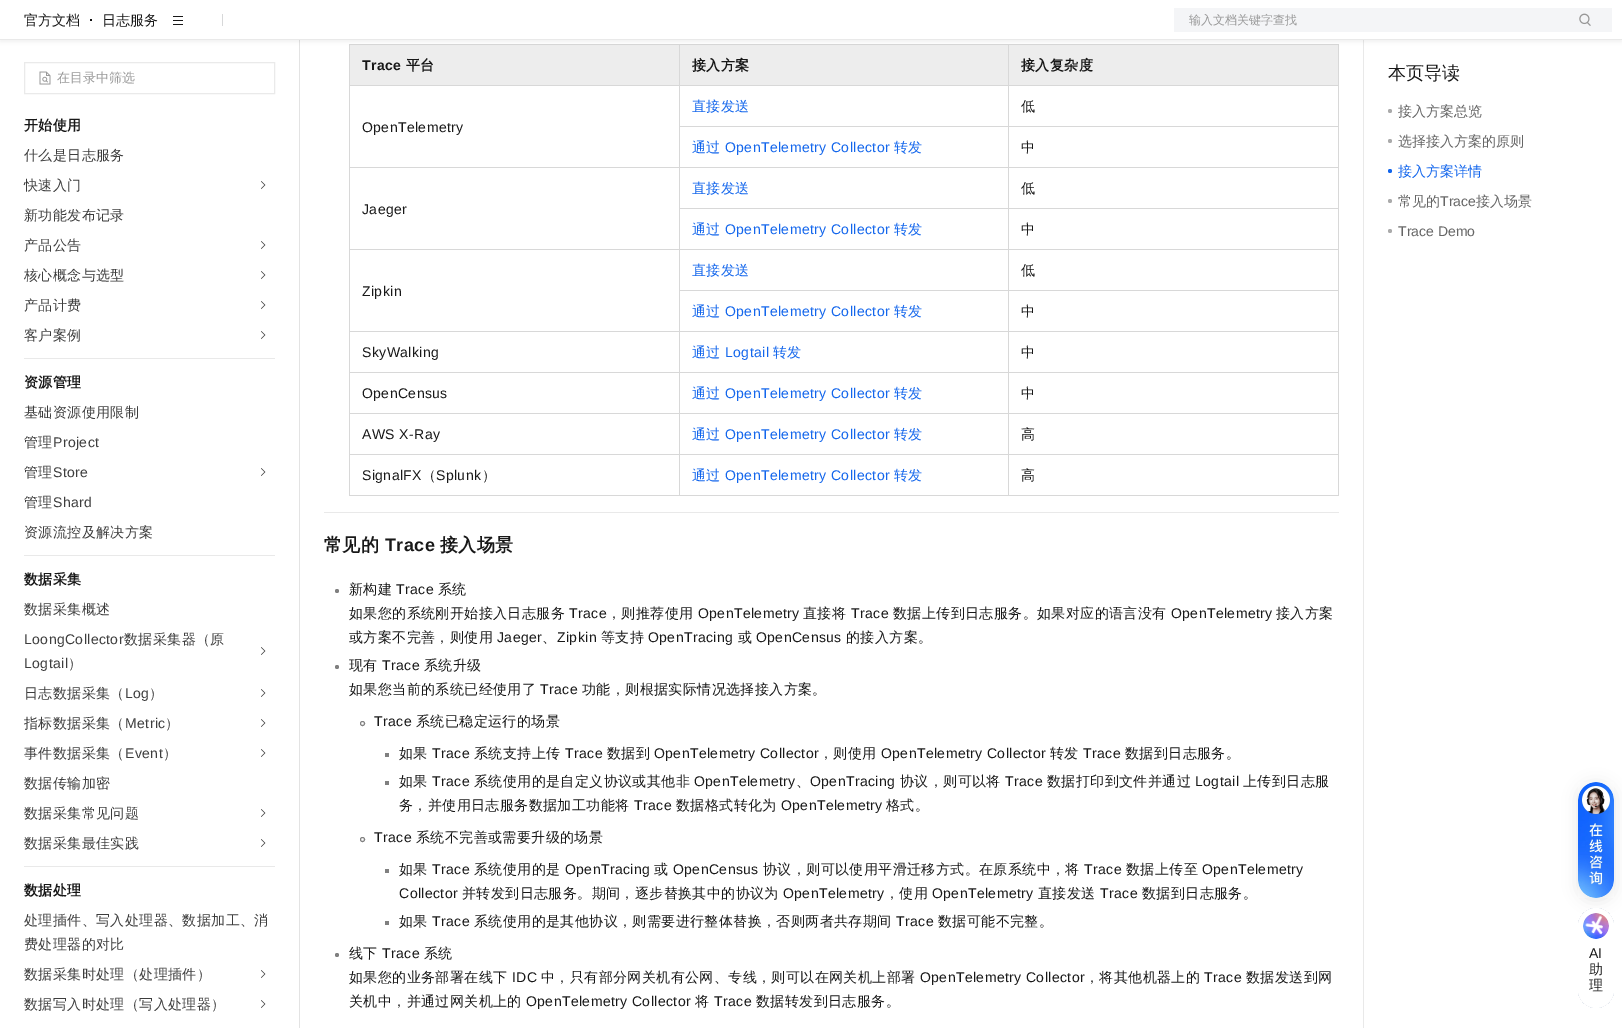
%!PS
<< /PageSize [1622 1028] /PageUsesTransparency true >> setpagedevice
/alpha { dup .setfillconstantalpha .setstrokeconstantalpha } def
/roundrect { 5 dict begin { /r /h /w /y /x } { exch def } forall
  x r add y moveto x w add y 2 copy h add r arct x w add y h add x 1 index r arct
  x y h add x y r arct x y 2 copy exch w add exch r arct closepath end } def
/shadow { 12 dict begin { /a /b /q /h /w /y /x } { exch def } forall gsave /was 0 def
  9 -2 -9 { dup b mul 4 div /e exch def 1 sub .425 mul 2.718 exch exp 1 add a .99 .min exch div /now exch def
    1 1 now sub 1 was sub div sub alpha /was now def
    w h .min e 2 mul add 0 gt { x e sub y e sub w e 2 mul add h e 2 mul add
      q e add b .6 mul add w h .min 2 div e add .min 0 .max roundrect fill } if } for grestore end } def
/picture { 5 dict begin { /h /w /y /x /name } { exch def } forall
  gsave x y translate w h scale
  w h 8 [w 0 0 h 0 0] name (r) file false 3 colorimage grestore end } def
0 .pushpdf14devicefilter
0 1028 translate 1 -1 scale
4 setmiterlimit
1 setgray
0 0 1622 1028 rectfill
0.89 setgray
299 40 1 988 rectfill
0.914 setgray
1363 40 1 988 rectfill
0.929 setgray
350 45 329 40 rectfill
0.847 setgray
1008 44 331 1 rectfill
1008 85 331 1 rectfill
1008 126 331 1 rectfill
1008 167 331 1 rectfill
1008 208 331 1 rectfill
1008 249 331 1 rectfill
1008 290 331 1 rectfill
1008 331 331 1 rectfill
1008 372 331 1 rectfill
1008 413 331 1 rectfill
1008 454 331 1 rectfill
1338 454 1 42 rectfill
1008 495 331 1 rectfill
1008 454 1 42 rectfill
679 454 330 1 rectfill
1008 413 1 42 rectfill
679 413 330 1 rectfill
1008 372 1 42 rectfill
679 372 330 1 rectfill
1008 331 1 42 rectfill
679 331 330 1 rectfill
1008 290 1 42 rectfill
679 290 330 1 rectfill
1008 249 1 42 rectfill
679 249 330 1 rectfill
1008 208 1 42 rectfill
679 208 330 1 rectfill
1008 167 1 42 rectfill
679 167 330 1 rectfill
1008 126 1 42 rectfill
679 126 330 1 rectfill
1008 85 1 42 rectfill
679 85 330 1 rectfill
1008 44 1 42 rectfill
679 44 330 1 rectfill
679 495 330 1 rectfill
679 454 1 42 rectfill
349 454 331 1 rectfill
679 413 1 42 rectfill
349 413 331 1 rectfill
679 372 1 42 rectfill
349 372 331 1 rectfill
679 331 1 42 rectfill
349 331 331 1 rectfill
679 290 1 42 rectfill
679 249 1 42 rectfill
349 249 331 1 rectfill
679 208 1 42 rectfill
679 167 1 42 rectfill
349 167 331 1 rectfill
679 126 1 42 rectfill
679 85 1 42 rectfill
349 85 331 1 rectfill
679 44 1 42 rectfill
349 44 331 1 rectfill
349 495 331 1 rectfill
349 454 1 42 rectfill
349 413 1 42 rectfill
349 372 1 42 rectfill
349 331 1 42 rectfill
349 249 1 83 rectfill
349 167 1 83 rectfill
349 85 1 83 rectfill
349 44 1 42 rectfill
0.929 setgray
680 45 328 40 rectfill
1009 45 329 40 rectfill
0.847 setgray
1338 413 1 42 rectfill
1338 372 1 42 rectfill
1338 331 1 42 rectfill
1338 290 1 42 rectfill
1338 249 1 42 rectfill
1338 208 1 42 rectfill
1338 167 1 42 rectfill
1338 126 1 42 rectfill
1338 85 1 42 rectfill
1338 44 1 42 rectfill
0 setgray
0 2 1622 40 0 2 0.05 shadow
1 setgray
0 0 1622 39 rectfill
0.914 setgray
0 39 1622 1 rectfill
0.843 0.847 0.851 setrgbcolor
222 14 1 12 rectfill
/WenQuanYiZenHei-Medium [14 0 0 -14 0 0] selectfont
0.094 setgray
24 25 moveto (官方文档) show
0 setgray
newpath 91 20 1 0 360 arc closepath fill
0.094 setgray
102 25 moveto (日志服务) show
173 16 10 1 rectfill
173 20 10 1 rectfill
173 24 10 1 rectfill
0.957 0.961 0.969 setrgbcolor
1174 8 438 24 rectfill
/WenQuanYiZenHei-Medium [12 0 0 -12 0 0] selectfont
0.6 setgray
1189 24 moveto (输入文档关键字查找) show
(img1.rgb) 1579 13 12 13 picture
0.918 setgray
24.5 62.5 250 31 rectstroke
(img2.rgb) 39 71 12 14 picture
/WenQuanYiZenHei-Medium [13 0 0 -13 0 0] selectfont
0.6 setgray
57 82 moveto (在目录中筛选) show
0.914 setgray
24 358 251 1 rectfill
/WenQuanYiZenHei-Bold [14 0 0 -14 0 0] selectfont
0.094 setgray
24 130 moveto 0.4 0 (开始使用) ashow
/WenQuanYiZenHei-Medium [14 0 0 -14 0 0] selectfont
0.239 setgray
24 160 moveto 0.4 0 (什么是日志服务) ashow
24 190 moveto 0.4 0 (快速入门) ashow
(img3.rgb) 261 181 5 8 picture
24 220 moveto 0.4 0 (新功能发布记录) ashow
24 250 moveto 0.4 0 (产品公告) ashow
(img3.rgb) 261 241 5 8 picture
24 280 moveto 0.4 0 (核心概念与选型) ashow
(img3.rgb) 261 271 5 8 picture
24 310 moveto 0.4 0 (产品计费) ashow
(img3.rgb) 261 301 5 8 picture
24 340 moveto 0.4 0 (客户案例) ashow
(img3.rgb) 261 331 5 8 picture
0.914 setgray
24 555 251 1 rectfill
/WenQuanYiZenHei-Bold [14 0 0 -14 0 0] selectfont
0.094 setgray
24 387 moveto 0.4 0 (资源管理) ashow
/WenQuanYiZenHei-Medium [14 0 0 -14 0 0] selectfont
0.239 setgray
24 417 moveto 0.4 0 (基础资源使用限制) ashow
24 447 moveto 0.4 0 (管理) ashow
/LiberationSans-Regular [14 0 0 -14 0 0] selectfont
53 447 moveto 0.4 0 (Project) ashow
/WenQuanYiZenHei-Medium [14 0 0 -14 0 0] selectfont
24 477 moveto 0.4 0 (管理) ashow
/LiberationSans-Regular [14 0 0 -14 0 0] selectfont
53 477 moveto 0.4 0 (Store) ashow
(img3.rgb) 261 468 5 8 picture
/WenQuanYiZenHei-Medium [14 0 0 -14 0 0] selectfont
24 507 moveto 0.4 0 (管理) ashow
/LiberationSans-Regular [14 0 0 -14 0 0] selectfont
53 507 moveto 0.4 0 (Shard) ashow
/WenQuanYiZenHei-Medium [14 0 0 -14 0 0] selectfont
24 537 moveto 0.4 0 (资源流控及解决方案) ashow
0.914 setgray
24 866 251 1 rectfill
/WenQuanYiZenHei-Bold [14 0 0 -14 0 0] selectfont
0.094 setgray
24 584 moveto 0.4 0 (数据采集) ashow
/WenQuanYiZenHei-Medium [14 0 0 -14 0 0] selectfont
0.239 setgray
24 614 moveto 0.4 0 (数据采集概述) ashow
/LiberationSans-Regular [14 0 0 -14 0 0] selectfont
24 644 moveto 0.4 0 (LoongCollector) ashow
/WenQuanYiZenHei-Medium [14 0 0 -14 0 0] selectfont
124 644 moveto 0.4 0 (数据采集器（原) ashow
/LiberationSans-Regular [14 0 0 -14 0 0] selectfont
24 668 moveto 0.4 0 (Logtail) ashow
/WenQuanYiZenHei-Medium [14 0 0 -14 0 0] selectfont
68 668 moveto 0.4 0 (）) ashow
(img3.rgb) 261 647 5 8 picture
24 698 moveto 0.4 0 (日志数据采集（) ashow
/LiberationSans-Regular [14 0 0 -14 0 0] selectfont
125 698 moveto 0.4 0 (Log) ashow
/WenQuanYiZenHei-Medium [14 0 0 -14 0 0] selectfont
149 698 moveto 0.4 0 (）) ashow
(img3.rgb) 261 689 5 8 picture
24 728 moveto 0.4 0 (指标数据采集（) ashow
/LiberationSans-Regular [14 0 0 -14 0 0] selectfont
125 728 moveto 0.4 0 (Metric) ashow
/WenQuanYiZenHei-Medium [14 0 0 -14 0 0] selectfont
165 728 moveto 0.4 0 (）) ashow
(img3.rgb) 261 719 5 8 picture
24 758 moveto 0.4 0 (事件数据采集（) ashow
/LiberationSans-Regular [14 0 0 -14 0 0] selectfont
125 758 moveto 0.4 0 (Event) ashow
/WenQuanYiZenHei-Medium [14 0 0 -14 0 0] selectfont
163 758 moveto 0.4 0 (）) ashow
(img3.rgb) 261 749 5 8 picture
24 788 moveto 0.4 0 (数据传输加密) ashow
24 818 moveto 0.4 0 (数据采集常见问题) ashow
(img3.rgb) 261 809 5 8 picture
24 848 moveto 0.4 0 (数据采集最佳实践) ashow
(img3.rgb) 261 839 5 8 picture
/WenQuanYiZenHei-Bold [14 0 0 -14 0 0] selectfont
0.094 setgray
24 895 moveto 0.4 0 (数据处理) ashow
/WenQuanYiZenHei-Medium [14 0 0 -14 0 0] selectfont
0.239 setgray
24 925 moveto 0.4 0 (处理插件、写入处理器、数据加工、消) ashow
24 949 moveto 0.4 0 (费处理器的对比) ashow
24 979 moveto 0.4 0 (数据采集时处理（处理插件）) ashow
(img3.rgb) 261 970 5 8 picture
24 1009 moveto 0.4 0 (数据写入时处理（写入处理器）) ashow
(img3.rgb) 261 1000 5 8 picture
/LiberationSans-Bold [14 0 0 -14 0 0] selectfont
0.094 setgray
362 70 moveto 0.4 0 (Trace) ashow
/WenQuanYiZenHei-Bold [14 0 0 -14 0 0] selectfont
406 70 moveto 0.4 0 (平台) ashow
692 70 moveto 0.4 0 (接入方案) ashow
1021 70 moveto 0.4 0 (接入复杂度) ashow
/WenQuanYiZenHei-Medium [14 0 0 -14 0 0] selectfont
0.075 0.4 0.925 setrgbcolor
692 111 moveto 0.4 0 (直接发送) ashow
0.094 setgray
1021 111 moveto 0.4 0 (低) ashow
/LiberationSans-Regular [14 0 0 -14 0 0] selectfont
362 132 moveto 0.4 0 (OpenTelemetry) ashow
/WenQuanYiZenHei-Medium [14 0 0 -14 0 0] selectfont
0.075 0.4 0.925 setrgbcolor
692 152 moveto 0.4 0 (通过) ashow
/LiberationSans-Regular [14 0 0 -14 0 0] selectfont
725 152 moveto 0.4 0 (OpenTelemetry Collector) ashow
/WenQuanYiZenHei-Medium [14 0 0 -14 0 0] selectfont
894 152 moveto 0.4 0 (转发) ashow
0.094 setgray
1021 152 moveto 0.4 0 (中) ashow
0.075 0.4 0.925 setrgbcolor
692 193 moveto 0.4 0 (直接发送) ashow
0.094 setgray
1021 193 moveto 0.4 0 (低) ashow
/LiberationSans-Regular [14 0 0 -14 0 0] selectfont
362 214 moveto 0.4 0 (Jaeger) ashow
/WenQuanYiZenHei-Medium [14 0 0 -14 0 0] selectfont
0.075 0.4 0.925 setrgbcolor
692 234 moveto 0.4 0 (通过) ashow
/LiberationSans-Regular [14 0 0 -14 0 0] selectfont
725 234 moveto 0.4 0 (OpenTelemetry Collector) ashow
/WenQuanYiZenHei-Medium [14 0 0 -14 0 0] selectfont
894 234 moveto 0.4 0 (转发) ashow
0.094 setgray
1021 234 moveto 0.4 0 (中) ashow
0.075 0.4 0.925 setrgbcolor
692 275 moveto 0.4 0 (直接发送) ashow
0.094 setgray
1021 275 moveto 0.4 0 (低) ashow
/LiberationSans-Regular [14 0 0 -14 0 0] selectfont
362 296 moveto 0.4 0 (Zipkin) ashow
/WenQuanYiZenHei-Medium [14 0 0 -14 0 0] selectfont
0.075 0.4 0.925 setrgbcolor
692 316 moveto 0.4 0 (通过) ashow
/LiberationSans-Regular [14 0 0 -14 0 0] selectfont
725 316 moveto 0.4 0 (OpenTelemetry Collector) ashow
/WenQuanYiZenHei-Medium [14 0 0 -14 0 0] selectfont
894 316 moveto 0.4 0 (转发) ashow
0.094 setgray
1021 316 moveto 0.4 0 (中) ashow
/LiberationSans-Regular [14 0 0 -14 0 0] selectfont
362 357 moveto 0.4 0 (SkyWalking) ashow
/WenQuanYiZenHei-Medium [14 0 0 -14 0 0] selectfont
0.075 0.4 0.925 setrgbcolor
692 357 moveto 0.4 0 (通过) ashow
/LiberationSans-Regular [14 0 0 -14 0 0] selectfont
725 357 moveto 0.4 0 (Logtail) ashow
/WenQuanYiZenHei-Medium [14 0 0 -14 0 0] selectfont
773 357 moveto 0.4 0 (转发) ashow
0.094 setgray
1021 357 moveto 0.4 0 (中) ashow
/LiberationSans-Regular [14 0 0 -14 0 0] selectfont
362 398 moveto 0.4 0 (OpenCensus) ashow
/WenQuanYiZenHei-Medium [14 0 0 -14 0 0] selectfont
0.075 0.4 0.925 setrgbcolor
692 398 moveto 0.4 0 (通过) ashow
/LiberationSans-Regular [14 0 0 -14 0 0] selectfont
725 398 moveto 0.4 0 (OpenTelemetry Collector) ashow
/WenQuanYiZenHei-Medium [14 0 0 -14 0 0] selectfont
894 398 moveto 0.4 0 (转发) ashow
0.094 setgray
1021 398 moveto 0.4 0 (中) ashow
/LiberationSans-Regular [14 0 0 -14 0 0] selectfont
362 439 moveto 0.4 0 (AWS X-Ray) ashow
/WenQuanYiZenHei-Medium [14 0 0 -14 0 0] selectfont
0.075 0.4 0.925 setrgbcolor
692 439 moveto 0.4 0 (通过) ashow
/LiberationSans-Regular [14 0 0 -14 0 0] selectfont
725 439 moveto 0.4 0 (OpenTelemetry Collector) ashow
/WenQuanYiZenHei-Medium [14 0 0 -14 0 0] selectfont
894 439 moveto 0.4 0 (转发) ashow
0.094 setgray
1021 439 moveto 0.4 0 (高) ashow
/LiberationSans-Regular [14 0 0 -14 0 0] selectfont
362 480 moveto 0.4 0 (SignalFX) ashow
/WenQuanYiZenHei-Medium [14 0 0 -14 0 0] selectfont
422 480 moveto 0.4 0 (（) ashow
/LiberationSans-Regular [14 0 0 -14 0 0] selectfont
436 480 moveto 0.4 0 (Splunk) ashow
/WenQuanYiZenHei-Medium [14 0 0 -14 0 0] selectfont
482 480 moveto 0.4 0 (）) ashow
0.075 0.4 0.925 setrgbcolor
692 480 moveto 0.4 0 (通过) ashow
/LiberationSans-Regular [14 0 0 -14 0 0] selectfont
725 480 moveto 0.4 0 (OpenTelemetry Collector) ashow
/WenQuanYiZenHei-Medium [14 0 0 -14 0 0] selectfont
894 480 moveto 0.4 0 (转发) ashow
0.094 setgray
1021 480 moveto 0.4 0 (高) ashow
0.914 setgray
324 512 1015 1 rectfill
/WenQuanYiZenHei-Bold [18 0 0 -18 0 0] selectfont
0.094 setgray
324 551 moveto 0.4 0 (常见的) ashow
/LiberationSans-Bold [18 0 0 -18 0 0] selectfont
385 551 moveto 0.4 0 (Trace) ashow
/WenQuanYiZenHei-Bold [18 0 0 -18 0 0] selectfont
440 551 moveto 0.4 0 (接入场景) ashow
0.502 setgray
newpath 337 591 2 0 360 arc closepath fill
/WenQuanYiZenHei-Medium [14 0 0 -14 0 0] selectfont
0.094 setgray
349 594 moveto 0.4 0 (新构建) ashow
/LiberationSans-Regular [14 0 0 -14 0 0] selectfont
396 594 moveto 0.4 0 (Trace) ashow
/WenQuanYiZenHei-Medium [14 0 0 -14 0 0] selectfont
438 594 moveto 0.4 0 (系统) ashow
349 618 moveto 0.4 0 (如果您的系统刚开始接入日志服务) ashow
/LiberationSans-Regular [14 0 0 -14 0 0] selectfont
569 618 moveto 0.4 0 (Trace) ashow
/WenQuanYiZenHei-Medium [14 0 0 -14 0 0] selectfont
607 618 moveto 0.4 0 (，则推荐使用) ashow
/LiberationSans-Regular [14 0 0 -14 0 0] selectfont
698 618 moveto 0.4 0 (OpenTelemetry) ashow
/WenQuanYiZenHei-Medium [14 0 0 -14 0 0] selectfont
803 618 moveto 0.4 0 (直接将) ashow
/LiberationSans-Regular [14 0 0 -14 0 0] selectfont
851 618 moveto 0.4 0 (Trace) ashow
/WenQuanYiZenHei-Medium [14 0 0 -14 0 0] selectfont
893 618 moveto 0.4 0 (数据上传到日志服务。如果对应的语言没有) ashow
/LiberationSans-Regular [14 0 0 -14 0 0] selectfont
1171 618 moveto 0.4 0 (OpenTelemetry) ashow
/WenQuanYiZenHei-Medium [14 0 0 -14 0 0] selectfont
1276 618 moveto 0.4 0 (接入方案) ashow
349 642 moveto 0.4 0 (或方案不完善，则使用) ashow
/LiberationSans-Regular [14 0 0 -14 0 0] selectfont
497 642 moveto 0.4 0 (Jaeger) ashow
/WenQuanYiZenHei-Medium [14 0 0 -14 0 0] selectfont
542 642 moveto 0.4 0 (、) ashow
/LiberationSans-Regular [14 0 0 -14 0 0] selectfont
557 642 moveto 0.4 0 (Zipkin) ashow
/WenQuanYiZenHei-Medium [14 0 0 -14 0 0] selectfont
601 642 moveto 0.4 0 (等支持) ashow
/LiberationSans-Regular [14 0 0 -14 0 0] selectfont
648 642 moveto 0.4 0 (OpenTracing) ashow
/WenQuanYiZenHei-Medium [14 0 0 -14 0 0] selectfont
738 642 moveto 0.4 0 (或) ashow
/LiberationSans-Regular [14 0 0 -14 0 0] selectfont
756 642 moveto 0.4 0 (OpenCensus) ashow
/WenQuanYiZenHei-Medium [14 0 0 -14 0 0] selectfont
846 642 moveto 0.4 0 (的接入方案。) ashow
0.502 setgray
newpath 337 667 2 0 360 arc closepath fill
0.094 setgray
349 670 moveto 0.4 0 (现有) ashow
/LiberationSans-Regular [14 0 0 -14 0 0] selectfont
382 670 moveto 0.4 0 (Trace) ashow
/WenQuanYiZenHei-Medium [14 0 0 -14 0 0] selectfont
424 670 moveto 0.4 0 (系统升级) ashow
349 694 moveto 0.4 0 (如果您当前的系统已经使用了) ashow
/LiberationSans-Regular [14 0 0 -14 0 0] selectfont
540 694 moveto 0.4 0 (Trace) ashow
/WenQuanYiZenHei-Medium [14 0 0 -14 0 0] selectfont
582 694 moveto 0.4 0 (功能，则根据实际情况选择接入方案。) ashow
0.502 setgray
newpath 362.5 723.5 2 0 360 arc closepath stroke
/LiberationSans-Regular [14 0 0 -14 0 0] selectfont
0.094 setgray
374 726 moveto 0.4 0 (Trace) ashow
/WenQuanYiZenHei-Medium [14 0 0 -14 0 0] selectfont
416 726 moveto 0.4 0 (系统已稳定运行的场景) ashow
0.502 setgray
385 753 4 4 rectfill
0.094 setgray
399 758 moveto 0.4 0 (如果) ashow
/LiberationSans-Regular [14 0 0 -14 0 0] selectfont
432 758 moveto 0.4 0 (Trace) ashow
/WenQuanYiZenHei-Medium [14 0 0 -14 0 0] selectfont
474 758 moveto 0.4 0 (系统支持上传) ashow
/LiberationSans-Regular [14 0 0 -14 0 0] selectfont
565 758 moveto 0.4 0 (Trace) ashow
/WenQuanYiZenHei-Medium [14 0 0 -14 0 0] selectfont
607 758 moveto 0.4 0 (数据到) ashow
/LiberationSans-Regular [14 0 0 -14 0 0] selectfont
654 758 moveto 0.4 0 (OpenTelemetry Collector) ashow
/WenQuanYiZenHei-Medium [14 0 0 -14 0 0] selectfont
819 758 moveto 0.4 0 (，则使用) ashow
/LiberationSans-Regular [14 0 0 -14 0 0] selectfont
881 758 moveto 0.4 0 (OpenTelemetry Collector) ashow
/WenQuanYiZenHei-Medium [14 0 0 -14 0 0] selectfont
1050 758 moveto 0.4 0 (转发) ashow
/LiberationSans-Regular [14 0 0 -14 0 0] selectfont
1083 758 moveto 0.4 0 (Trace) ashow
/WenQuanYiZenHei-Medium [14 0 0 -14 0 0] selectfont
1125 758 moveto 0.4 0 (数据到日志服务。) ashow
0.502 setgray
385 781 4 4 rectfill
0.094 setgray
399 786 moveto 0.4 0 (如果) ashow
/LiberationSans-Regular [14 0 0 -14 0 0] selectfont
432 786 moveto 0.4 0 (Trace) ashow
/WenQuanYiZenHei-Medium [14 0 0 -14 0 0] selectfont
474 786 moveto 0.4 0 (系统使用的是自定义协议或其他非) ashow
/LiberationSans-Regular [14 0 0 -14 0 0] selectfont
694 786 moveto 0.4 0 (OpenTelemetry) ashow
/WenQuanYiZenHei-Medium [14 0 0 -14 0 0] selectfont
796 786 moveto 0.4 0 (、) ashow
/LiberationSans-Regular [14 0 0 -14 0 0] selectfont
810 786 moveto 0.4 0 (OpenTracing) ashow
/WenQuanYiZenHei-Medium [14 0 0 -14 0 0] selectfont
900 786 moveto 0.4 0 (协议，则可以将) ashow
/LiberationSans-Regular [14 0 0 -14 0 0] selectfont
1005 786 moveto 0.4 0 (Trace) ashow
/WenQuanYiZenHei-Medium [14 0 0 -14 0 0] selectfont
1047 786 moveto 0.4 0 (数据打印到文件并通过) ashow
/LiberationSans-Regular [14 0 0 -14 0 0] selectfont
1195 786 moveto 0.4 0 (Logtail) ashow
/WenQuanYiZenHei-Medium [14 0 0 -14 0 0] selectfont
1243 786 moveto 0.4 0 (上传到日志服) ashow
399 810 moveto 0.4 0 (务，并使用日志服务数据加工功能将) ashow
/LiberationSans-Regular [14 0 0 -14 0 0] selectfont
634 810 moveto 0.4 0 (Trace) ashow
/WenQuanYiZenHei-Medium [14 0 0 -14 0 0] selectfont
676 810 moveto 0.4 0 (数据格式转化为) ashow
/LiberationSans-Regular [14 0 0 -14 0 0] selectfont
781 810 moveto 0.4 0 (OpenTelemetry) ashow
/WenQuanYiZenHei-Medium [14 0 0 -14 0 0] selectfont
886 810 moveto 0.4 0 (格式。) ashow
0.502 setgray
newpath 362.5 839.5 2 0 360 arc closepath stroke
/LiberationSans-Regular [14 0 0 -14 0 0] selectfont
0.094 setgray
374 842 moveto 0.4 0 (Trace) ashow
/WenQuanYiZenHei-Medium [14 0 0 -14 0 0] selectfont
416 842 moveto 0.4 0 (系统不完善或需要升级的场景) ashow
0.502 setgray
385 869 4 4 rectfill
0.094 setgray
399 874 moveto 0.4 0 (如果) ashow
/LiberationSans-Regular [14 0 0 -14 0 0] selectfont
432 874 moveto 0.4 0 (Trace) ashow
/WenQuanYiZenHei-Medium [14 0 0 -14 0 0] selectfont
474 874 moveto 0.4 0 (系统使用的是) ashow
/LiberationSans-Regular [14 0 0 -14 0 0] selectfont
565 874 moveto 0.4 0 (OpenTracing) ashow
/WenQuanYiZenHei-Medium [14 0 0 -14 0 0] selectfont
654 874 moveto 0.4 0 (或) ashow
/LiberationSans-Regular [14 0 0 -14 0 0] selectfont
673 874 moveto 0.4 0 (OpenCensus) ashow
/WenQuanYiZenHei-Medium [14 0 0 -14 0 0] selectfont
763 874 moveto 0.4 0 (协议，则可以使用平滑迁移方式。在原系统中，将) ashow
/LiberationSans-Regular [14 0 0 -14 0 0] selectfont
1084 874 moveto 0.4 0 (Trace) ashow
/WenQuanYiZenHei-Medium [14 0 0 -14 0 0] selectfont
1126 874 moveto 0.4 0 (数据上传至) ashow
/LiberationSans-Regular [14 0 0 -14 0 0] selectfont
1202 874 moveto 0.4 0 (OpenTelemetry) ashow
399 898 moveto 0.4 0 (Collector) ashow
/WenQuanYiZenHei-Medium [14 0 0 -14 0 0] selectfont
462 898 moveto 0.4 0 (并转发到日志服务。期间，逐步替换其中的协议为) ashow
/LiberationSans-Regular [14 0 0 -14 0 0] selectfont
783 898 moveto 0.4 0 (OpenTelemetry) ashow
/WenQuanYiZenHei-Medium [14 0 0 -14 0 0] selectfont
885 898 moveto 0.4 0 (，使用) ashow
/LiberationSans-Regular [14 0 0 -14 0 0] selectfont
932 898 moveto 0.4 0 (OpenTelemetry) ashow
/WenQuanYiZenHei-Medium [14 0 0 -14 0 0] selectfont
1038 898 moveto 0.4 0 (直接发送) ashow
/LiberationSans-Regular [14 0 0 -14 0 0] selectfont
1100 898 moveto 0.4 0 (Trace) ashow
/WenQuanYiZenHei-Medium [14 0 0 -14 0 0] selectfont
1142 898 moveto 0.4 0 (数据到日志服务。) ashow
0.502 setgray
385 921 4 4 rectfill
0.094 setgray
399 926 moveto 0.4 0 (如果) ashow
/LiberationSans-Regular [14 0 0 -14 0 0] selectfont
432 926 moveto 0.4 0 (Trace) ashow
/WenQuanYiZenHei-Medium [14 0 0 -14 0 0] selectfont
474 926 moveto 0.4 0 (系统使用的是其他协议，则需要进行整体替换，否则两者共存期间) ashow
/LiberationSans-Regular [14 0 0 -14 0 0] selectfont
896 926 moveto 0.4 0 (Trace) ashow
/WenQuanYiZenHei-Medium [14 0 0 -14 0 0] selectfont
938 926 moveto 0.4 0 (数据可能不完整。) ashow
0.502 setgray
newpath 337 955 2 0 360 arc closepath fill
0.094 setgray
349 958 moveto 0.4 0 (线下) ashow
/LiberationSans-Regular [14 0 0 -14 0 0] selectfont
382 958 moveto 0.4 0 (Trace) ashow
/WenQuanYiZenHei-Medium [14 0 0 -14 0 0] selectfont
424 958 moveto 0.4 0 (系统) ashow
349 982 moveto 0.4 0 (如果您的业务部署在线下) ashow
/LiberationSans-Regular [14 0 0 -14 0 0] selectfont
512 982 moveto 0.4 0 (IDC) ashow
/WenQuanYiZenHei-Medium [14 0 0 -14 0 0] selectfont
541 982 moveto 0.4 0 (中，只有部分网关机有公网、专线，则可以在网关机上部署) ashow
/LiberationSans-Regular [14 0 0 -14 0 0] selectfont
920 982 moveto 0.4 0 (OpenTelemetry Collector) ashow
/WenQuanYiZenHei-Medium [14 0 0 -14 0 0] selectfont
1085 982 moveto 0.4 0 (，将其他机器上的) ashow
/LiberationSans-Regular [14 0 0 -14 0 0] selectfont
1204 982 moveto 0.4 0 (Trace) ashow
/WenQuanYiZenHei-Medium [14 0 0 -14 0 0] selectfont
1246 982 moveto 0.4 0 (数据发送到网) ashow
349 1006 moveto 0.4 0 (关机中，并通过网关机上的) ashow
/LiberationSans-Regular [14 0 0 -14 0 0] selectfont
526 1006 moveto 0.4 0 (OpenTelemetry Collector) ashow
/WenQuanYiZenHei-Medium [14 0 0 -14 0 0] selectfont
695 1006 moveto 0.4 0 (将) ashow
/LiberationSans-Regular [14 0 0 -14 0 0] selectfont
714 1006 moveto 0.4 0 (Trace) ashow
/WenQuanYiZenHei-Medium [14 0 0 -14 0 0] selectfont
756 1006 moveto 0.4 0 (数据转发到日志服务。) ashow
/WenQuanYiZenHei-Medium [18 0 0 -18 0 0] selectfont
1388 79 moveto (本页导读) show
0.671 setgray
newpath 1390 111 2 0 360 arc closepath fill
/WenQuanYiZenHei-Medium [14 0 0 -14 0 0] selectfont
0.4 setgray
1398 116 moveto (接入方案总览) show
0.671 setgray
newpath 1390 141 2 0 360 arc closepath fill
0.4 setgray
1398 146 moveto (选择接入方案的原则) show
0.075 0.4 0.925 setrgbcolor
newpath 1390 171 2 0 360 arc closepath fill
1398 176 moveto (接入方案详情) show
0.671 setgray
newpath 1390 201 2 0 360 arc closepath fill
0.4 setgray
1398 206 moveto (常见的) show
/LiberationSans-Regular [14 0 0 -14 0 0] selectfont
1440 206 moveto (Trace) show
/WenQuanYiZenHei-Medium [14 0 0 -14 0 0] selectfont
1476 206 moveto (接入场景) show
0.671 setgray
newpath 1390 231 2 0 360 arc closepath fill
/LiberationSans-Regular [14 0 0 -14 0 0] selectfont
0.4 setgray
1398 236 moveto (Trace Demo) show
0 setgray
1578 784 36 116 18 7.5 0.1 shadow
(img4.rgb) 1578 782 36 116 picture
gsave
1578 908 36 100 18 roundrect clip newpath
0.784 0.91 1 setrgbcolor
1528 858 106 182 0 4 1 shadow
1 0.847 0.8 setrgbcolor
1528 858 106 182 0 4 0.37 shadow
grestore
1 setgray
1578 908 36 100 18 roundrect fill
(img5.rgb) 1583 913 26 26 picture
(img6.rgb) 1585 915 18 20 picture
0.094 setgray
1589 958 moveto (AI) show
/WenQuanYiZenHei-Medium [14 0 0 -14 0 0] selectfont
1589 974 moveto (助) show
1589 990 moveto (理) show
.poppdf14devicefilter showpage
